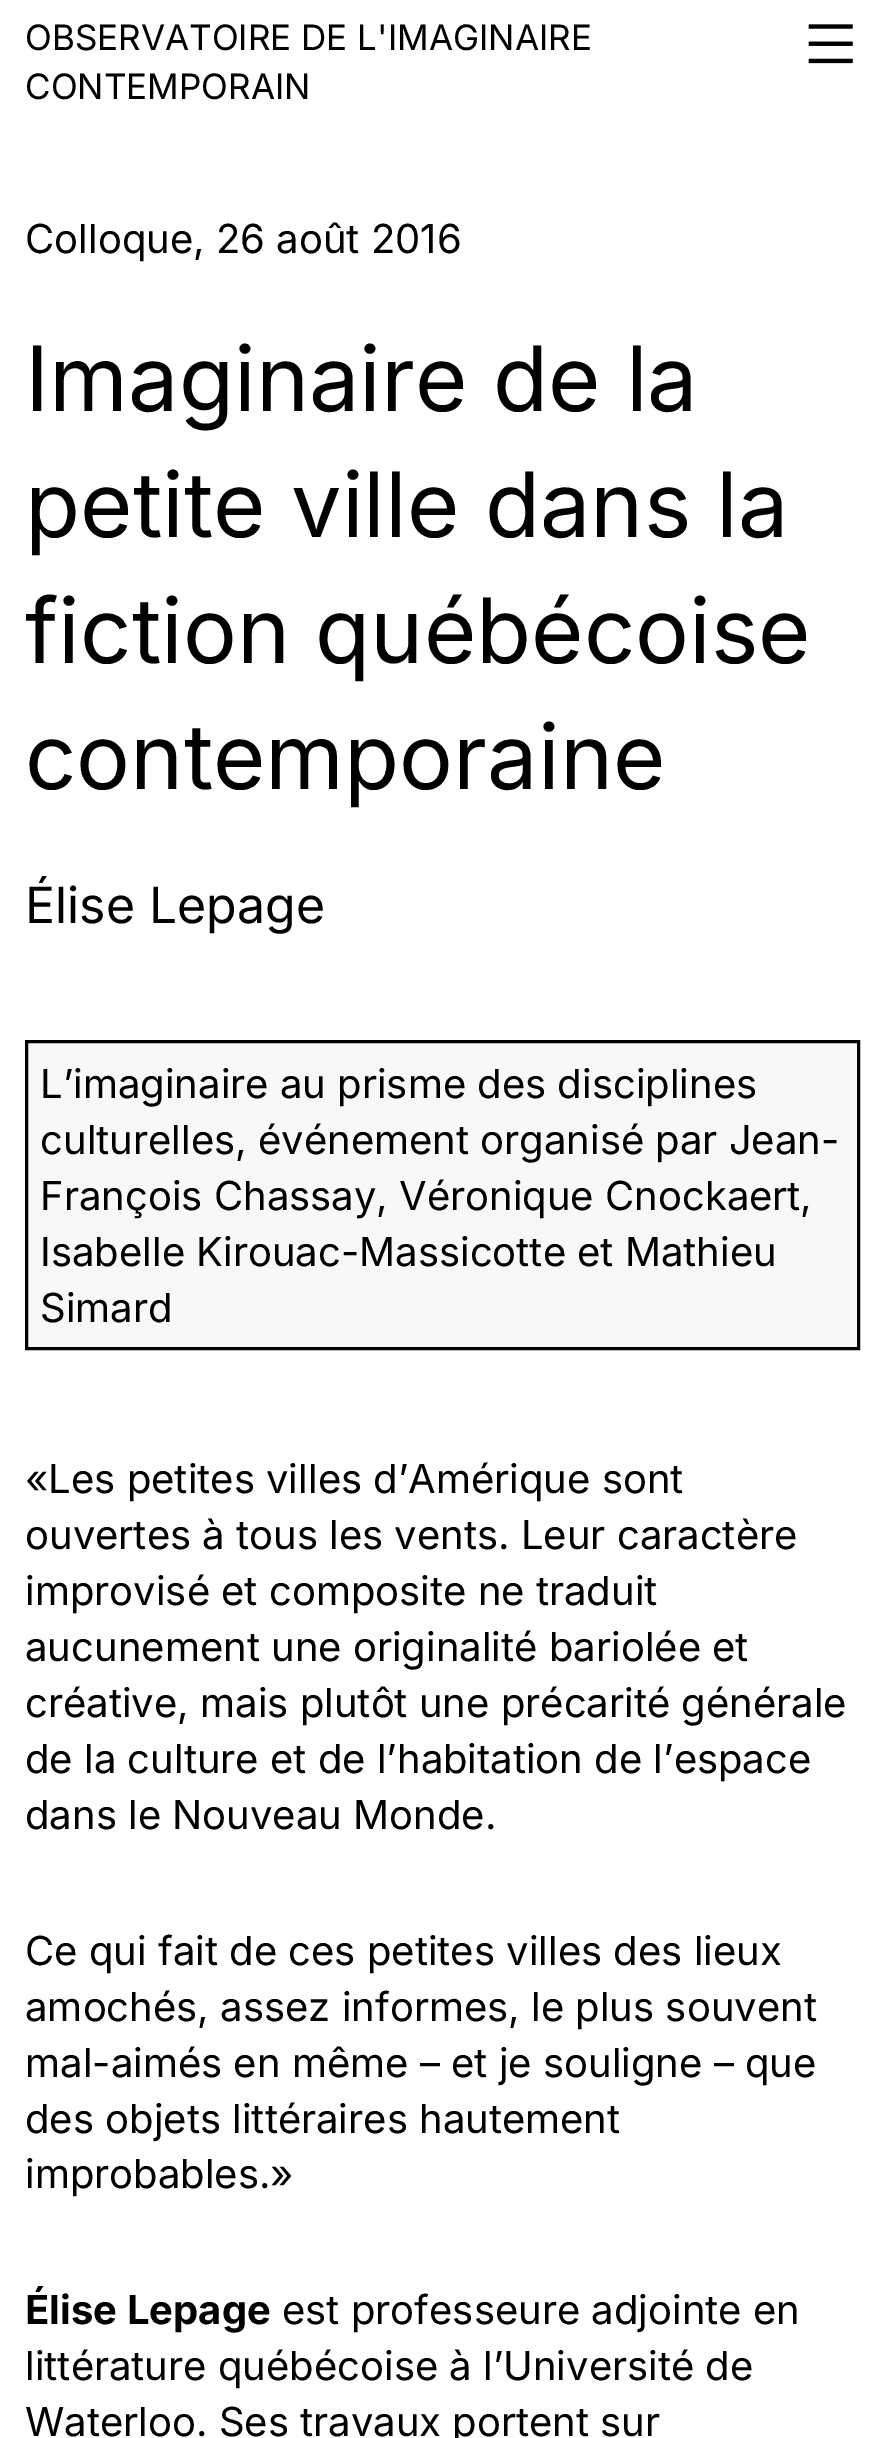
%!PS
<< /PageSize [884 2438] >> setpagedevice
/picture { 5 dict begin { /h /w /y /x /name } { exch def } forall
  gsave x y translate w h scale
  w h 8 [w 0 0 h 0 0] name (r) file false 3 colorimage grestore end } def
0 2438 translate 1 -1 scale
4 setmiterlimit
1 setgray
0 0 884 2438 rectfill
/Inter-Regular [35 0 0 -35 0 0] selectfont
0 setgray
25 50 moveto (OBSERVATOIRE DE L'IMAGINAIRE) show
(img1.rgb) 808 24 45 40 picture
25 99 moveto (CONTEMPORAIN) show
/Inter-Regular [40 0 0 -40 0 0] selectfont
25 253 moveto (Colloque, 26 août 2016) show
/Inter-Regular [90 0 0 -90 0 0] selectfont
25 411 moveto (Imaginaire de la) show
25 537 moveto (petite ville dans la) show
25 663 moveto (fiction québécoise) show
25 789 moveto (contemporaine) show
/Inter-Regular [50 0 0 -50 0 0] selectfont
25 923 moveto (Élise Lepage) show
0.976 0.973 0.973 setrgbcolor
newpath 26.5 1041.5 moveto 858.5 1041.5 lineto 858.5 1348.5 lineto 26.5 1348.5 lineto closepath gsave fill grestore
0 setgray
3 setlinewidth
stroke
/Inter-Regular [40 0 0 -40 0 0] selectfont
40 1098 moveto (L’imaginaire au prisme des disciplines) show
40 1154 moveto (culturelles, événement organisé par Jean-) show
40 1210 moveto (François Chassay, Véronique Cnockaert,) show
40 1266 moveto (Isabelle Kirouac-Massicotte et Mathieu) show
40 1322 moveto (Simard) show
25 1493 moveto («Les petites villes d’Amérique sont) show
25 1549 moveto (ouvertes à tous les vents. Leur caractère) show
25 1605 moveto (improvisé et composite ne traduit) show
25 1661 moveto (aucunement une originalité bariolée et) show
25 1717 moveto (créative, mais plutôt une précarité générale) show
25 1773 moveto (de la culture et de l’habitation de l’espace) show
25 1829 moveto (dans le Nouveau Monde.) show
25 1965 moveto (Ce qui fait de ces petites villes des lieux) show
25 2021 moveto (amochés, assez informes, le plus souvent) show
25 2077 moveto (mal-aimés en même – et je souligne – que) show
25 2133 moveto (des objets littéraires hautement) show
25 2188 moveto (improbables.») show
/Inter-Bold [40 0 0 -40 0 0] selectfont
25 2324 moveto (Élise Lepage) show
/Inter-Regular [40 0 0 -40 0 0] selectfont
282 2324 moveto (est professeure adjointe en) show
25 2380 moveto (littérature québécoise à l’Université de) show
25 2436 moveto (Waterloo. Ses travaux portent sur) show
showpage
